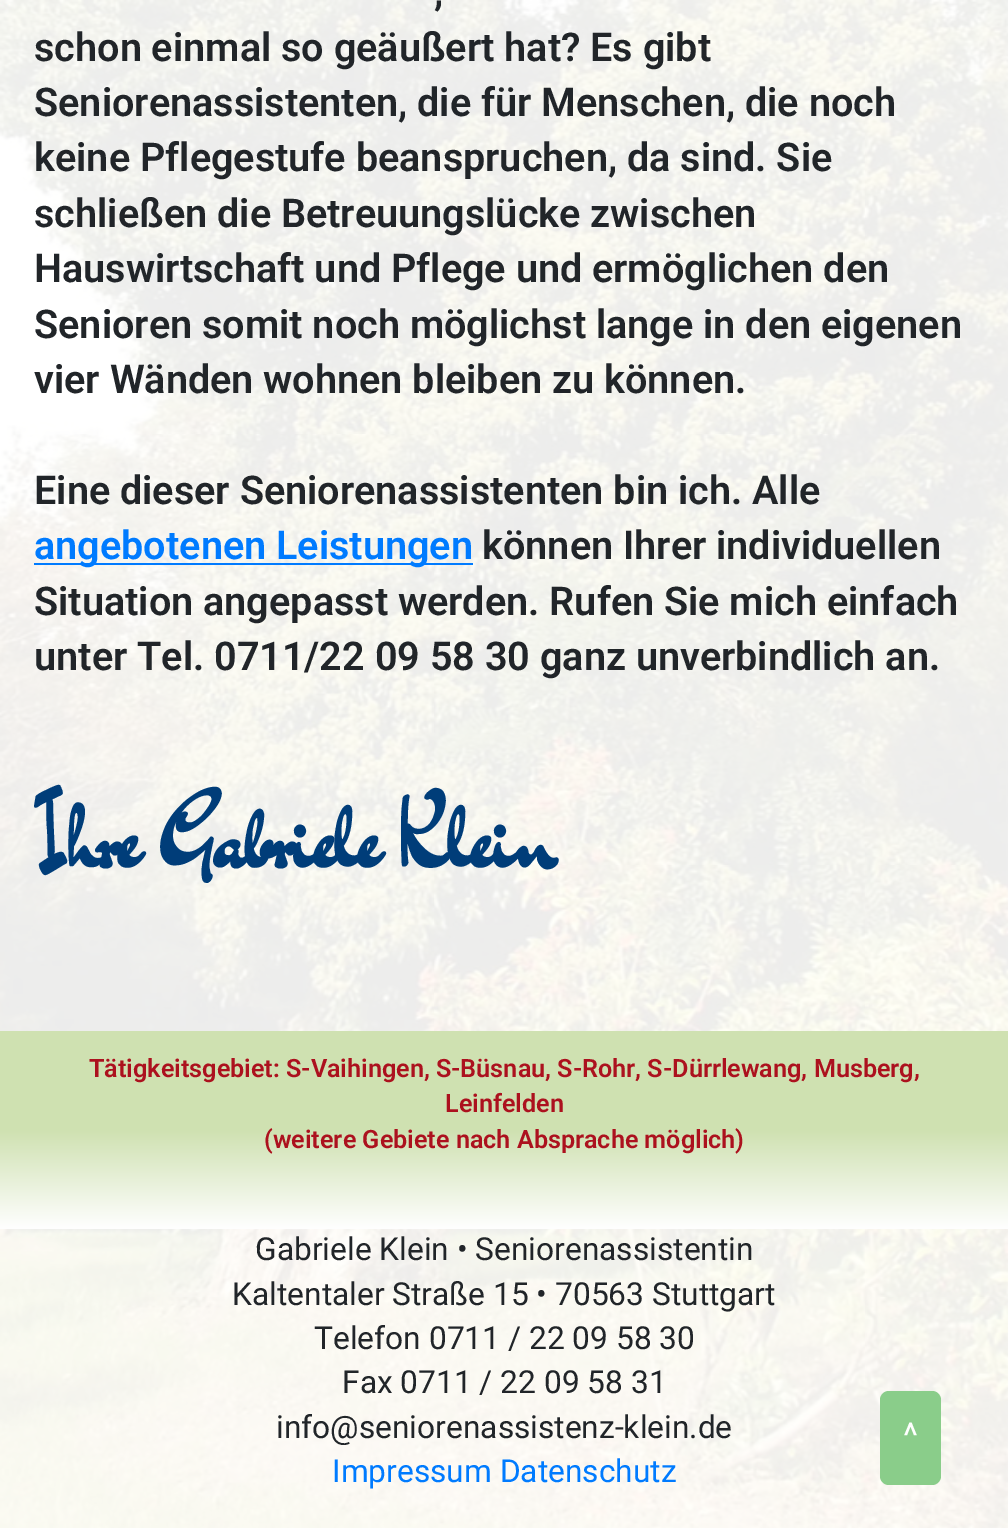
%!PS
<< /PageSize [1008 1528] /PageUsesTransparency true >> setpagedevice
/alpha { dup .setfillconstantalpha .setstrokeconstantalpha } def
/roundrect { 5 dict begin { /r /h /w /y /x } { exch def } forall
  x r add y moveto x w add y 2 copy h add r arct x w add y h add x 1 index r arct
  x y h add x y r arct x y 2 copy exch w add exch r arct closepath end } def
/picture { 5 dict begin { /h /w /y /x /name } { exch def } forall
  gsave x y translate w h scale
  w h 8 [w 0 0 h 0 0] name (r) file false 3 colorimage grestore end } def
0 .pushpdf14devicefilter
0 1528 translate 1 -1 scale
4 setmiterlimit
1 setgray
0 0 1008 1528 rectfill
(img1.rgb) 0 0 1008 1528 picture
0.85 alpha
0 0 1008 1031 rectfill
/Roboto-SemiBold [39.6 0 0 -39.6 0 0] selectfont
1 alpha
0.129 0.145 0.161 setrgbcolor
434 5 moveto (,) show
34 61 moveto (schon einmal so geäußert hat? Es gibt) show
34 116 moveto (Seniorenassistenten, die für Menschen, die noch) show
34 171 moveto (keine Pflegestufe beanspruchen, da sind. Sie) show
34 227 moveto (schließen die Betreuungslücke zwischen) show
34 282 moveto (Hauswirtschaft und Pflege und ermöglichen den) show
34 338 moveto (Senioren somit noch möglichst lange in den eigenen) show
34 393 moveto (vier Wänden wohnen bleiben zu können.) show
34 504 moveto (Eine dieser Seniorenassistenten bin ich. Alle) show
0 0.482 1 setrgbcolor
34 563 439 2 rectfill
34 559 moveto (angebotenen Leistungen) show
0.129 0.145 0.161 setrgbcolor
482 559 moveto (können Ihrer individuellen) show
34 615 moveto (Situation angepasst werden. Rufen Sie mich einfach) show
34 670 moveto (unter Tel. 0711/22 09 58 30 ganz unverbindlich an.) show
/DrSugiyama-Bold [90 0 0 -90 0 0] selectfont
0 0.239 0.475 setrgbcolor
34 864 moveto (Ihre Gabriele Klein) show
gsave newpath 0 1031 moveto 1008 1031 lineto 1008 1229 lineto 0 1229 lineto closepath clip newpath
<< /ShadingType 2 /ColorSpace /DeviceRGB /Coords [504 1229 504 1031] /Extend [true true] /Function << /FunctionType 3 /Domain [0 1] /Functions [<< /FunctionType 2 /Domain [0 1] /C0 [1 1 1] /C1 [0.812 0.882 0.694] /N 1 >> << /FunctionType 2 /Domain [0 1] /C0 [0.812 0.882 0.694] /C1 [0.812 0.882 0.694] /N 1 >>] /Bounds [0.5] /Encode [0 1 0 1] >> >> shfill grestore
/Roboto-SemiBold [25.2 0 0 -25.2 0 0] selectfont
0.675 0.067 0.118 setrgbcolor
89 1077 moveto (Tätigkeitsgebiet: S-Vaihingen, S-Büsnau, S-Rohr, S-Dürrlewang, Musberg,) show
445 1112 moveto (Leinfelden) show
264 1148 moveto (\(weitere Gebiete nach Absprache möglich\)) show
0.85 alpha
1 setgray
0 1229 1008 299 rectfill
/Roboto-Regular [31.7 0 0 -31.7 0 0] selectfont
1 alpha
0.129 0.145 0.161 setrgbcolor
255 1260 moveto (Gabriele Klein • Seniorenassistentin) show
232 1305 moveto (Kaltentaler Straße 15 • 70563 Stuttgart) show
314 1349 moveto (Telefon 0711 / 22 09 58 30) show
342 1393 moveto (Fax 0711 / 22 09 58 31) show
276 1438 moveto (info@seniorenassistenz-klein.de) show
0 0.482 1 setrgbcolor
332 1482 moveto (Impressum Datenschutz) show
0.541 0.804 0.541 setrgbcolor
880 1391 61 94 9 roundrect fill
/Roboto-Regular [36 0 0 -36 0 0] selectfont
1 setgray
903 1448 moveto (^) show
.poppdf14devicefilter showpage
